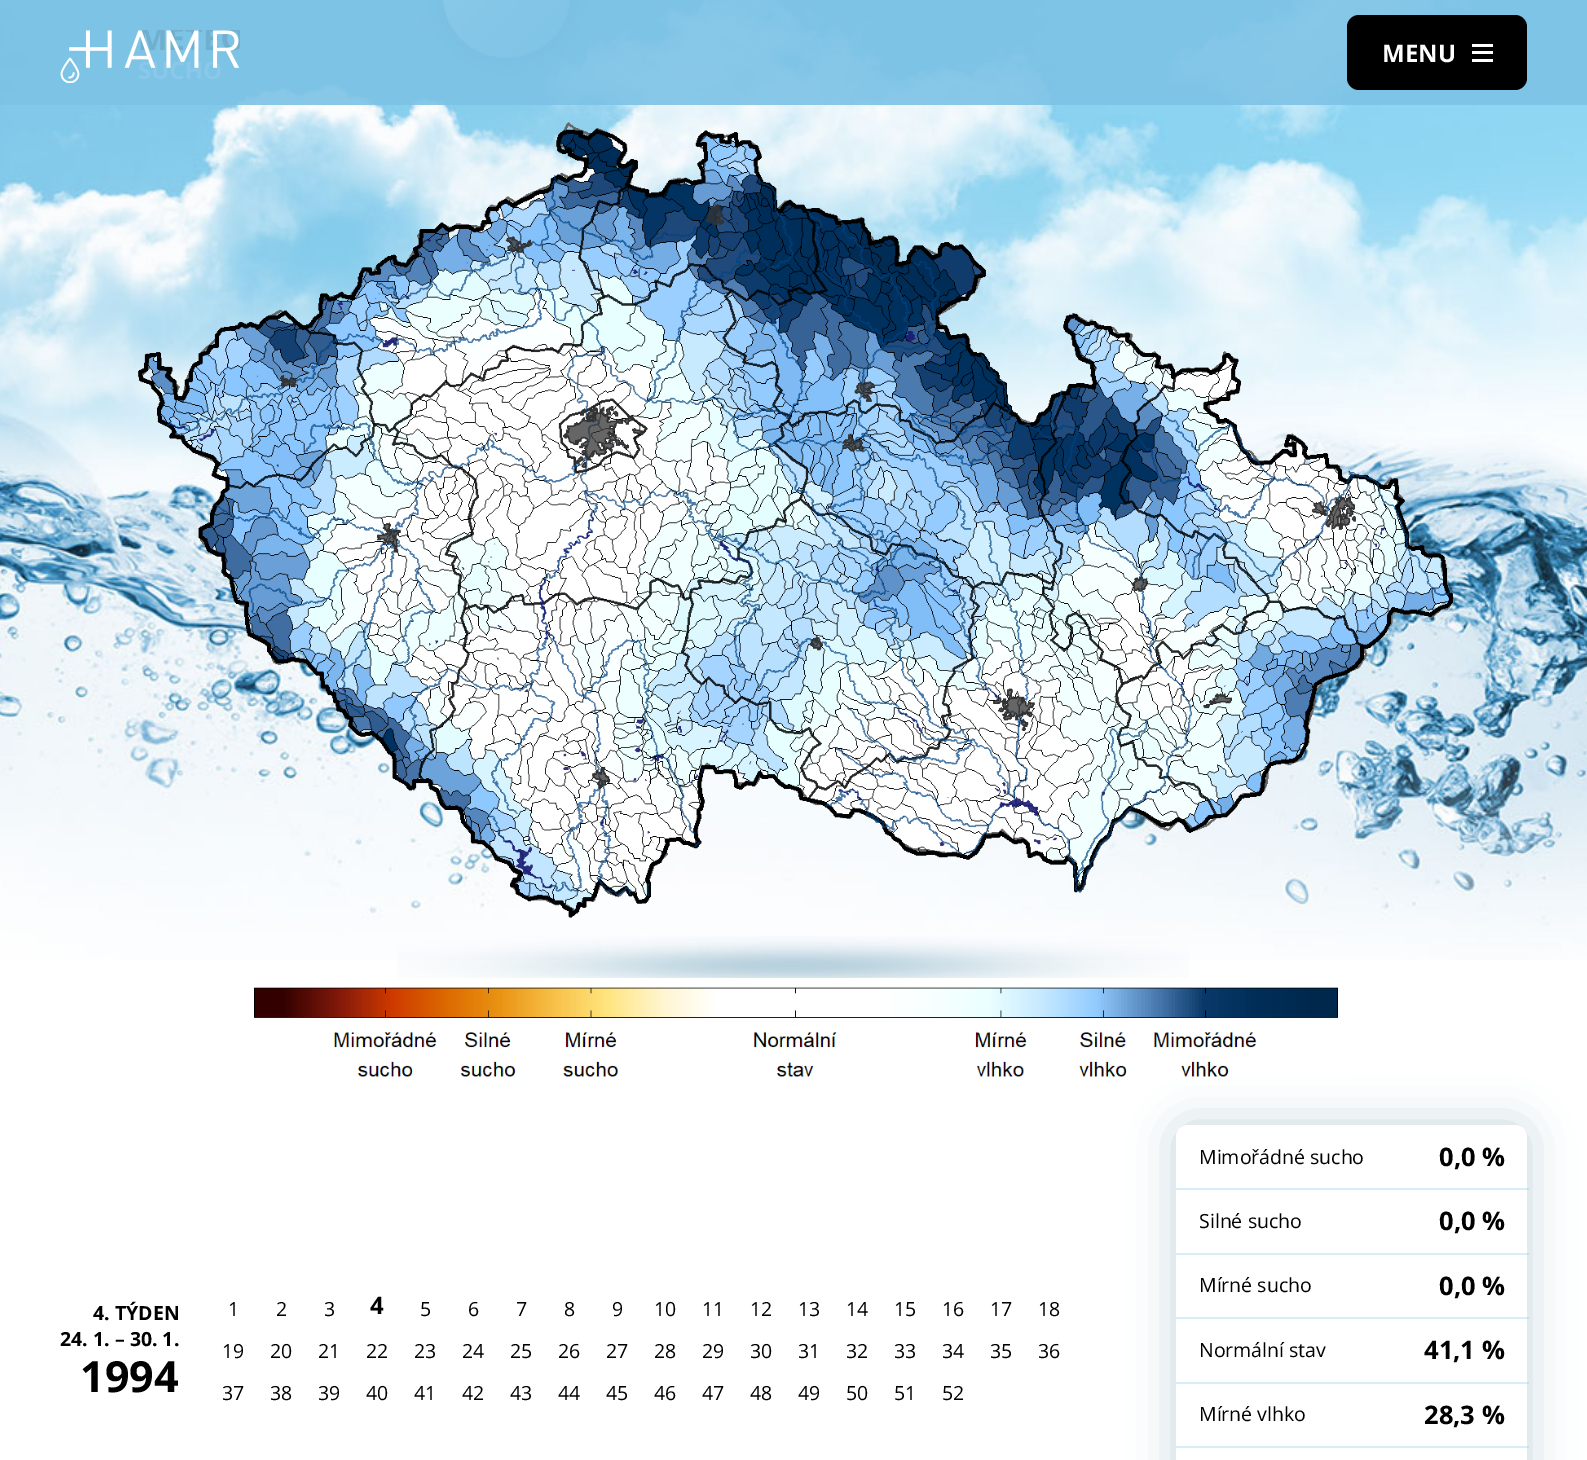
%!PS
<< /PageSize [1587 1460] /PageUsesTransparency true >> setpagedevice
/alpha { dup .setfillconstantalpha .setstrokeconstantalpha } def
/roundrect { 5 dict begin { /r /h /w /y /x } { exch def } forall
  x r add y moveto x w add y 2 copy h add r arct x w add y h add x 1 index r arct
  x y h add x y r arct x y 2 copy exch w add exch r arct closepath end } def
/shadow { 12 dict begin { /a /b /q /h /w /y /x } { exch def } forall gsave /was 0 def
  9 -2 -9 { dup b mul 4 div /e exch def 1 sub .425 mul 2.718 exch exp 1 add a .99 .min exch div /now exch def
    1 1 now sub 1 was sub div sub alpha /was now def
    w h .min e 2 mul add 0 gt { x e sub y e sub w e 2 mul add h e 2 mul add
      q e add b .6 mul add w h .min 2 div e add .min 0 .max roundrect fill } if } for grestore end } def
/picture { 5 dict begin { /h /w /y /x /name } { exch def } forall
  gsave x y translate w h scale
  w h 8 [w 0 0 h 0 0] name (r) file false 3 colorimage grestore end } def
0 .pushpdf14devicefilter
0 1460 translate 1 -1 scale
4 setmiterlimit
1 setgray
0 0 1587 1460 rectfill
(img2.rgb) 0 0 1587 960 picture
(img3.rgb) 424 0 166 77 picture
0.9 alpha
0.486 0.761 0.898 setrgbcolor
0 0 1587 105 rectfill
1 alpha
(img1.rgb) 60 30 180 53 picture
0 setgray
1347 15 180 75 12 roundrect fill
/OpenSans-Bold [24 0 0 -24 0 0] selectfont
1 setgray
1382 62 moveto (MENU) show
1472 44 21 3 rectfill
1472 51 21 3 rectfill
1472 59 21 3 rectfill
(img4.rgb) 397 936 792 42 picture
0.231 0.459 0.565 setrgbcolor
1176 1125 351 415 12 22.5 0.3 shadow
(img5.rgb) 138 122 1316 955 picture
/OpenSans-Bold [19.5 0 0 -19.5 0 0] selectfont
0 setgray
93 1320 moveto (4. TÝDEN) show
60 1346 moveto (24. 1. – 30. 1.) show
/OpenSans-Bold [43 0 0 -43 0 0] selectfont
80 1392 moveto (1994) show
/OpenSans-Regular [19.5 0 0 -19.5 0 0] selectfont
228 1316 moveto (1) show
276 1316 moveto (2) show
324 1316 moveto (3) show
/OpenSans-Bold [24 0 0 -24 0 0] selectfont
370 1314 moveto (4) show
/OpenSans-Regular [19.5 0 0 -19.5 0 0] selectfont
420 1316 moveto (5) show
468 1316 moveto (6) show
516 1316 moveto (7) show
564 1316 moveto (8) show
612 1316 moveto (9) show
654 1316 moveto (10) show
702 1316 moveto (11) show
750 1316 moveto (12) show
798 1316 moveto (13) show
846 1316 moveto (14) show
894 1316 moveto (15) show
942 1316 moveto (16) show
990 1316 moveto (17) show
1038 1316 moveto (18) show
222 1358 moveto (19) show
270 1358 moveto (20) show
318 1358 moveto (21) show
366 1358 moveto (22) show
414 1358 moveto (23) show
462 1358 moveto (24) show
510 1358 moveto (25) show
558 1358 moveto (26) show
606 1358 moveto (27) show
654 1358 moveto (28) show
702 1358 moveto (29) show
750 1358 moveto (30) show
798 1358 moveto (31) show
846 1358 moveto (32) show
894 1358 moveto (33) show
942 1358 moveto (34) show
990 1358 moveto (35) show
1038 1358 moveto (36) show
222 1400 moveto (37) show
270 1400 moveto (38) show
318 1400 moveto (39) show
366 1400 moveto (40) show
414 1400 moveto (41) show
462 1400 moveto (42) show
510 1400 moveto (43) show
558 1400 moveto (44) show
606 1400 moveto (45) show
654 1400 moveto (46) show
702 1400 moveto (47) show
750 1400 moveto (48) show
798 1400 moveto (49) show
846 1400 moveto (50) show
894 1400 moveto (51) show
942 1400 moveto (52) show
1 setgray
1176 1125 351 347 12 roundrect fill
0 setgray
1199 1164 moveto (Mimořádné sucho) show
/OpenSans-Bold [25.5 0 0 -25.5 0 0] selectfont
1439 1166 moveto (0,0 %) show
0.3 alpha
0.486 0.761 0.898 setrgbcolor
1176 1188 353 2 rectfill
/OpenSans-Regular [19.5 0 0 -19.5 0 0] selectfont
1 alpha
0 setgray
1199 1228 moveto (Silné sucho) show
/OpenSans-Bold [25.5 0 0 -25.5 0 0] selectfont
1439 1230 moveto (0,0 %) show
0.3 alpha
0.486 0.761 0.898 setrgbcolor
1176 1253 353 2 rectfill
/OpenSans-Regular [19.5 0 0 -19.5 0 0] selectfont
1 alpha
0 setgray
1199 1292 moveto (Mírné sucho) show
/OpenSans-Bold [25.5 0 0 -25.5 0 0] selectfont
1439 1295 moveto (0,0 %) show
0.3 alpha
0.486 0.761 0.898 setrgbcolor
1176 1317 353 2 rectfill
/OpenSans-Regular [19.5 0 0 -19.5 0 0] selectfont
1 alpha
0 setgray
1199 1357 moveto (Normální stav) show
/OpenSans-Bold [25.5 0 0 -25.5 0 0] selectfont
1424 1359 moveto (41,1 %) show
0.3 alpha
0.486 0.761 0.898 setrgbcolor
1176 1382 353 2 rectfill
/OpenSans-Regular [19.5 0 0 -19.5 0 0] selectfont
1 alpha
0 setgray
1199 1421 moveto (Mírné vlhko) show
/OpenSans-Bold [25.5 0 0 -25.5 0 0] selectfont
1424 1424 moveto (28,3 %) show
0.3 alpha
0.486 0.761 0.898 setrgbcolor
1176 1446 353 2 rectfill
.poppdf14devicefilter showpage
